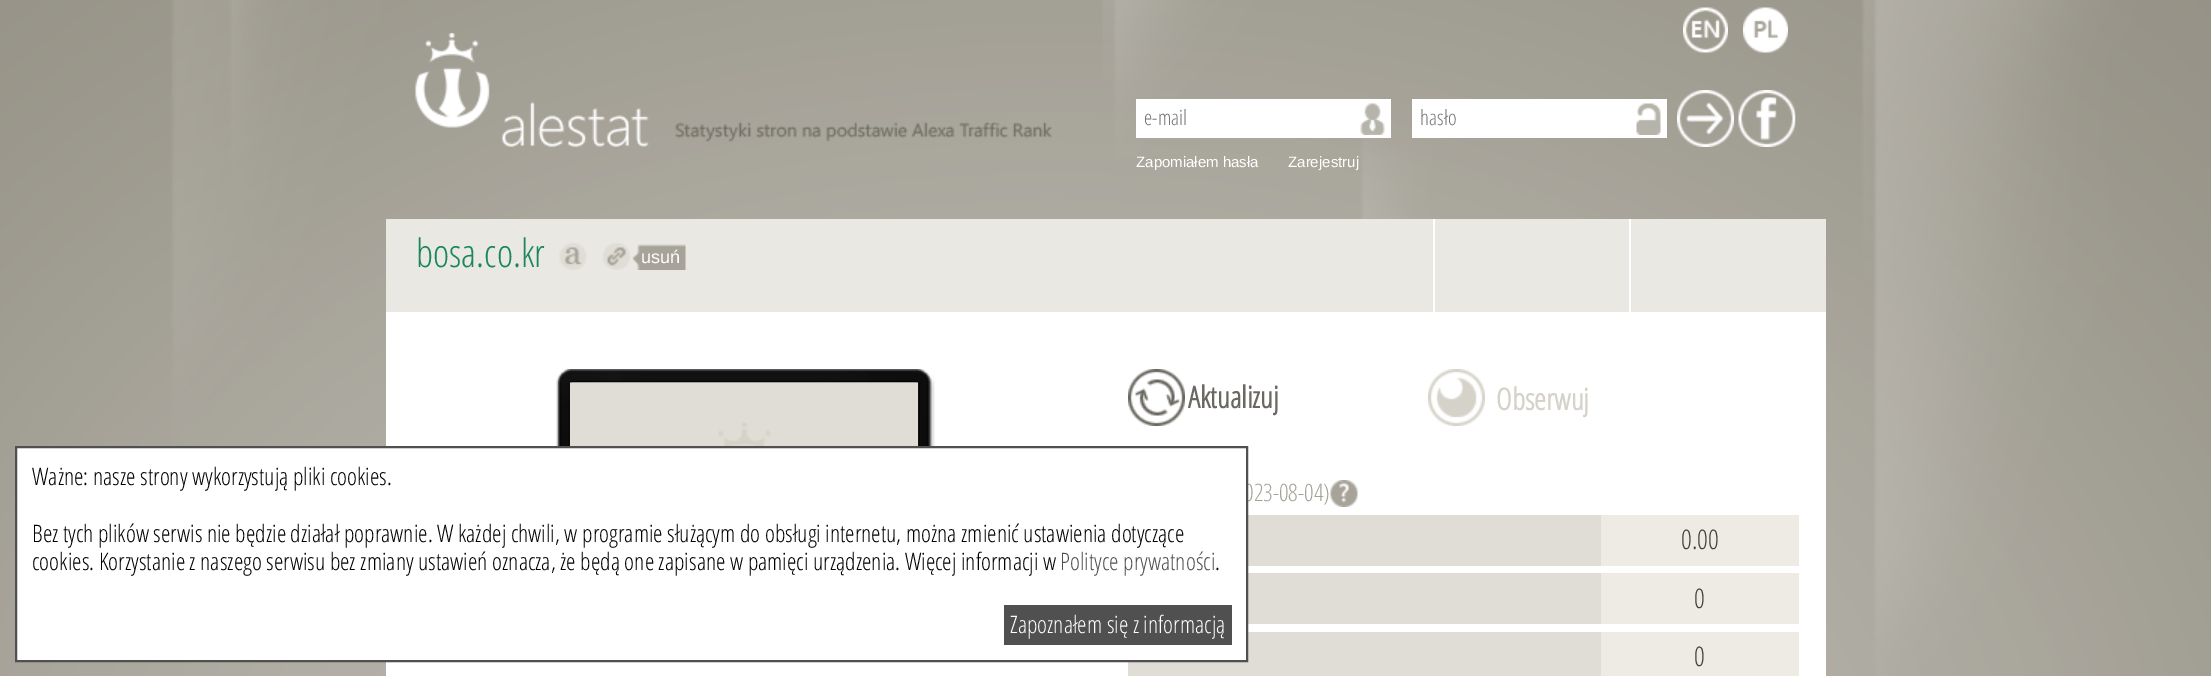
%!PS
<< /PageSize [2211 676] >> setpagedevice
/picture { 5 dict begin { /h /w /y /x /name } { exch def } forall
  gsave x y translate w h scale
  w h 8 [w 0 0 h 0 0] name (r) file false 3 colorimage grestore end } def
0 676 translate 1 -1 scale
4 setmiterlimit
1 setgray
0 0 2211 676 rectfill
(img1.rgb) 0 0 2211 676 picture
(img2.rgb) 415 33 637 114 picture
1136 99 255 39 rectfill
(img3.rgb) 1360 103 25 32 picture
/OpenSans-Light [21 0 0 -21 0 0] selectfont
0.459 setgray
1144 125 moveto (e-mail) show
1 setgray
1412 99 255 39 rectfill
(img4.rgb) 1636 103 25 32 picture
0.459 setgray
1420 125 moveto (hasło) show
(img5.rgb) 1677 90 57 57 picture
(img6.rgb) 1738 90 58 57 picture
/LiberationSans-Regular [15 0 0 -15 0 0] selectfont
1 setgray
1136 167 moveto (Zapomiałem hasła) show
1288 167 moveto (Zarejestruj) show
(img7.rgb) 1683 7 45 46 picture
(img8.rgb) 1743 7 45 46 picture
386 312 1440 364 rectfill
0.918 0.91 0.89 setrgbcolor
386 219 1440 93 rectfill
/OpenSans-Light [39 0 0 -39 0 0] selectfont
0.098 0.525 0.373 setrgbcolor
416 267 moveto (bosa.co.kr) show
(img9.rgb) 559 243 28 27 picture
(img10.rgb) 603 243 27 27 picture
(img11.rgb) 632 244 54 26 picture
/LiberationSans-Regular [18 0 0 -18 0 0] selectfont
1 setgray
641 263 moveto (usuń) show
1433 219 2 93 rectfill
1629 219 2 93 rectfill
(img12.rgb) 556 369 379 77 picture
(img13.rgb) 570 382 348 64 picture
(img14.rgb) 1128 369 57 57 picture
/OpenSans-Bold [30 0 0 -30 0 0] selectfont
0.416 0.408 0.376 setrgbcolor
1188 408 moveto (Aktualizuj) show
(img15.rgb) 1428 369 57 57 picture
0.835 0.824 0.788 setrgbcolor
1496 410 moveto (Obserwuj) show
/OpenSans-Light [24 0 0 -24 0 0] selectfont
0.651 0.635 0.596 setrgbcolor
1244 501 moveto (023-08-04\)) show
(img16.rgb) 1330 480 28 27 picture
0.875 0.867 0.839 setrgbcolor
1248 515 353 51 rectfill
0.929 0.922 0.894 setrgbcolor
1601 515 198 51 rectfill
/OpenSans-Light [27 0 0 -27 0 0] selectfont
0.263 0.255 0.224 setrgbcolor
1681 549 moveto (0.00) show
0.875 0.867 0.839 setrgbcolor
1248 573 353 51 rectfill
0.929 0.922 0.894 setrgbcolor
1601 573 198 51 rectfill
0.263 0.255 0.224 setrgbcolor
1694 608 moveto (0) show
0.875 0.867 0.839 setrgbcolor
1128 632 473 44 rectfill
0.929 0.922 0.894 setrgbcolor
1601 632 198 44 rectfill
0.263 0.255 0.224 setrgbcolor
1694 666 moveto (0) show
1 setgray
newpath 16 447 moveto 1247 447 lineto 1247 661 lineto 16 661 lineto closepath gsave fill grestore
0.314 setgray
2 setlinewidth
stroke
/OpenSans-Light [24 0 0 -24 0 0] selectfont
0 setgray
32 485 moveto (Ważne: nasze strony wykorzystują pliki cookies.) show
32 542 moveto (Bez tych plików serwis nie będzie działał poprawnie. W każdej chwili, w programie służącym do obsługi internetu, można zmienić ustawienia dotyczące) show
32 570 moveto (cookies. Korzystanie z naszego serwisu bez zmiany ustawień oznacza, że będą one zapisane w pamięci urządzenia. Więcej informacji w) show
0.314 setgray
1060 570 moveto (Polityce prywatności) show
0 setgray
1215 570 moveto (.) show
0.314 setgray
1004 605 228 40 rectfill
1 setgray
1010 633 moveto (Zapoznałem się z informacją) show
showpage
